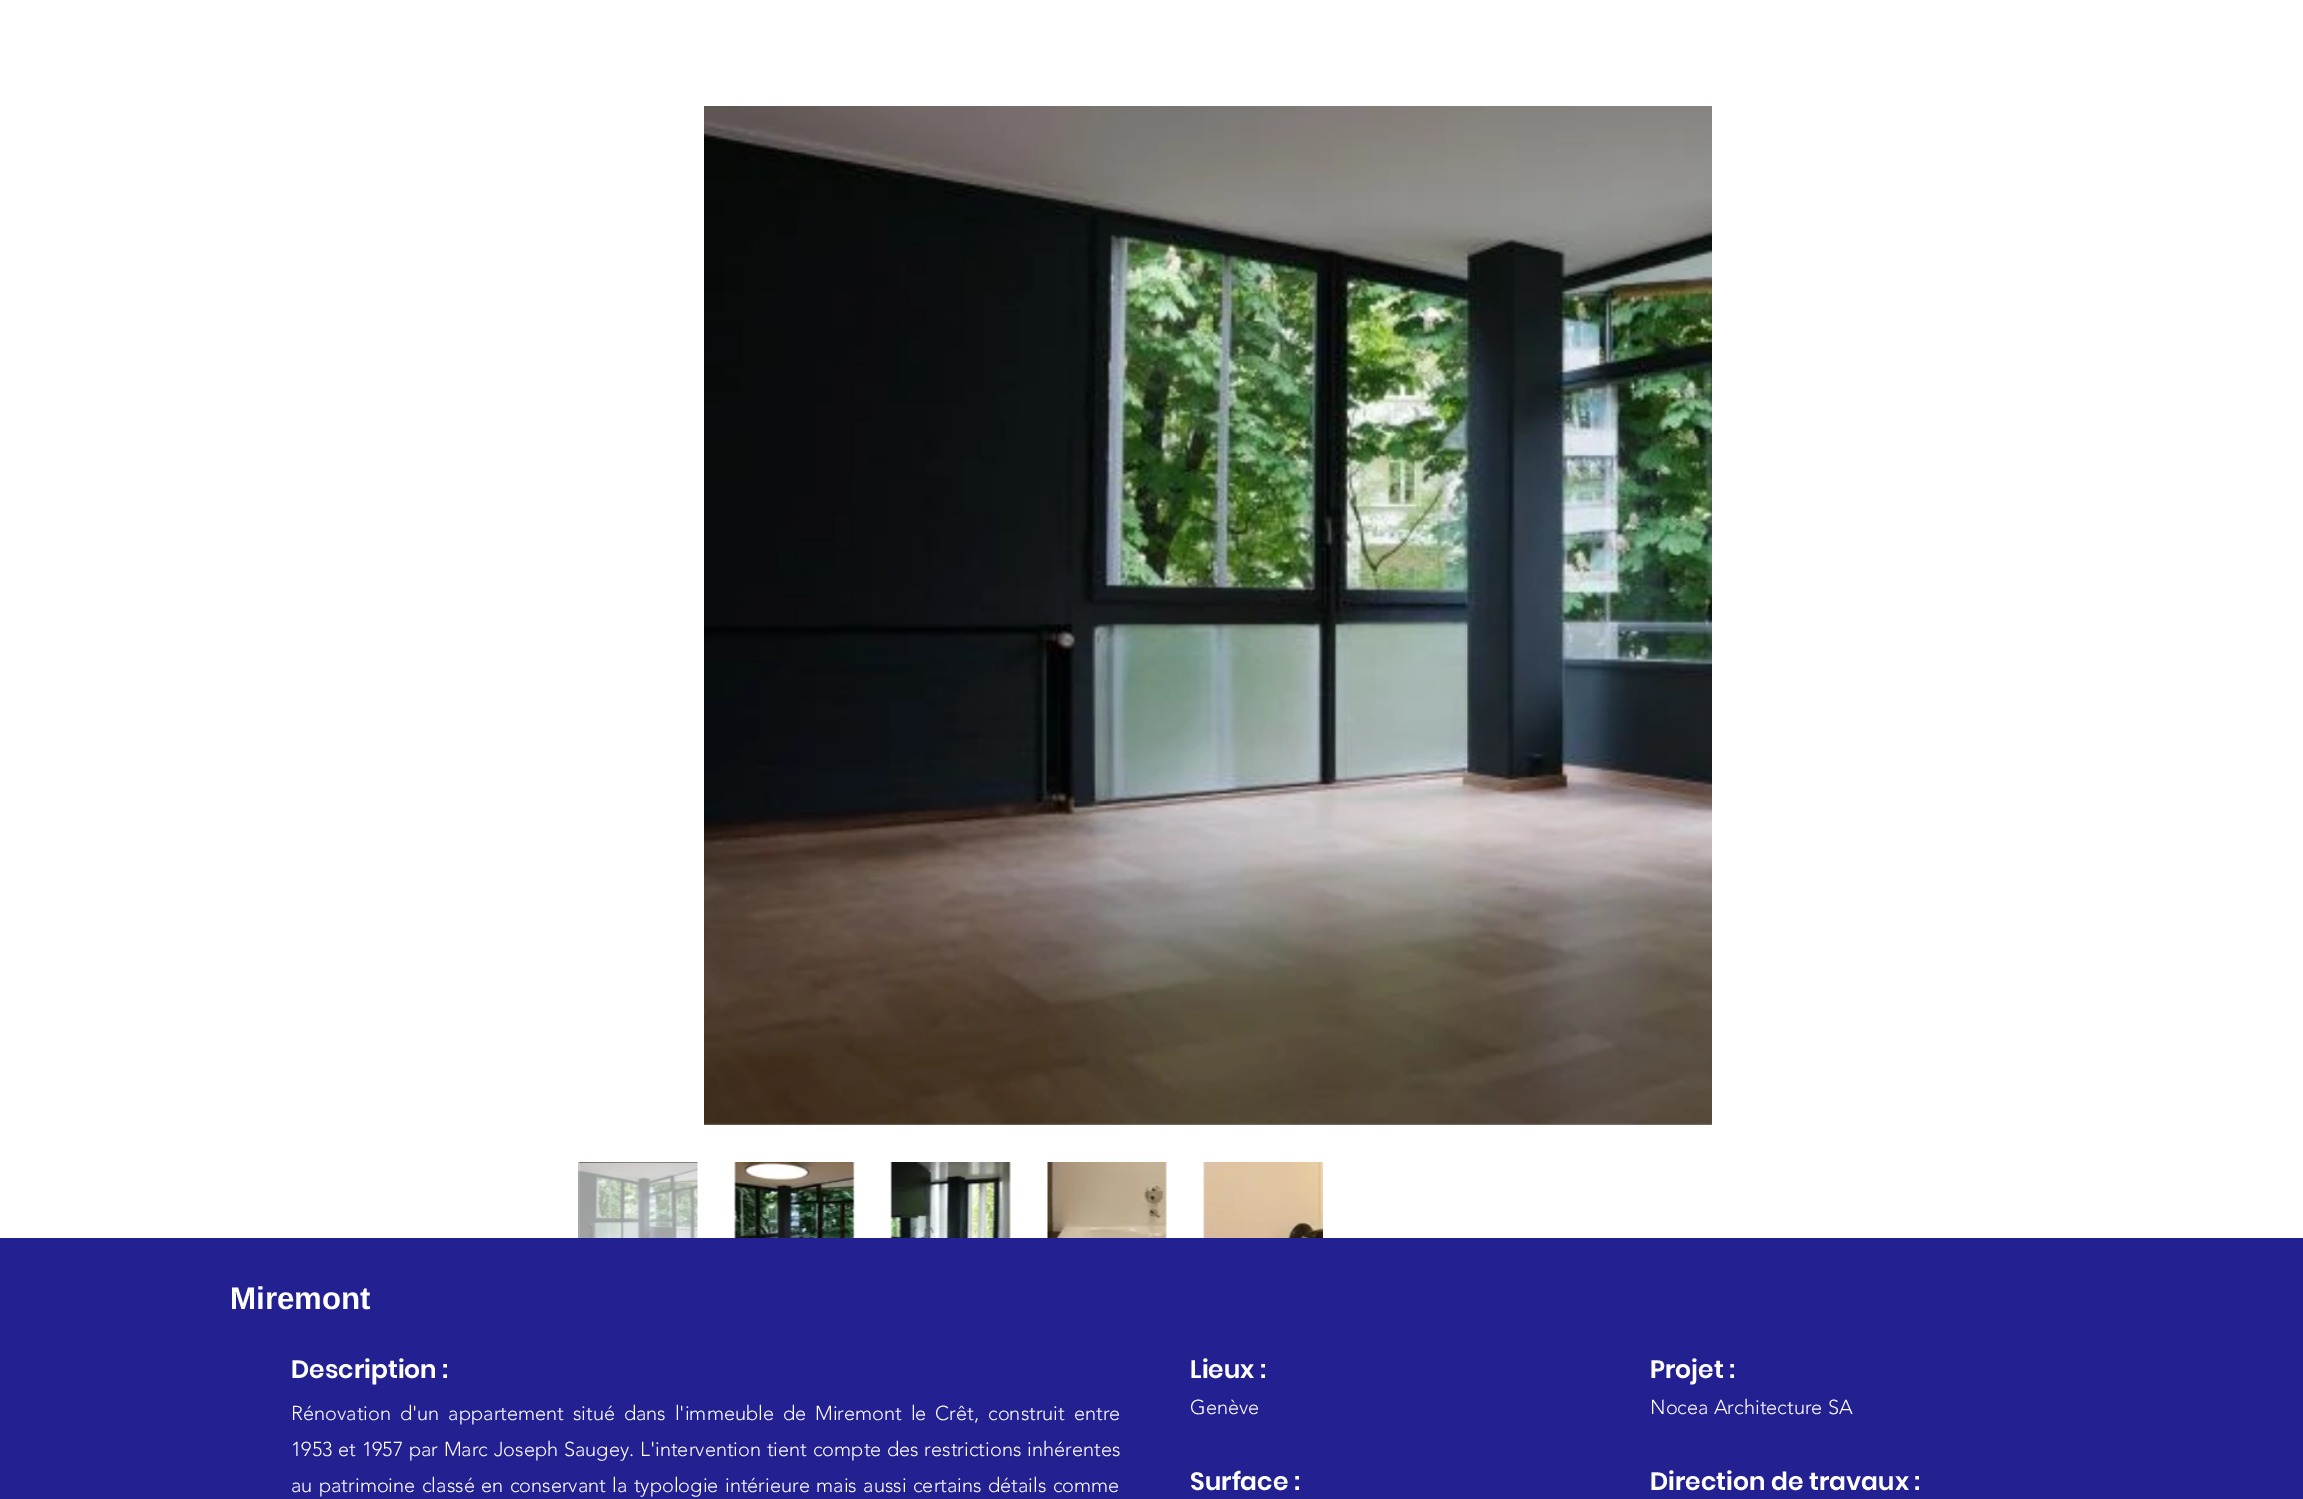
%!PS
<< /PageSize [2303 1499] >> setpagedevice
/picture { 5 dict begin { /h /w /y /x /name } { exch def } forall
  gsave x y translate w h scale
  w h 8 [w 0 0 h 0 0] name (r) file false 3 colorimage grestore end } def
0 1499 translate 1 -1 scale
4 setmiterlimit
1 setgray
0 0 2303 1499 rectfill
(img1.rgb) 704 106 1008 1019 picture
(img2.rgb) 578 1162 120 76 picture
(img3.rgb) 734 1162 121 76 picture
(img4.rgb) 890 1162 121 76 picture
(img5.rgb) 1047 1162 120 76 picture
(img6.rgb) 1203 1162 120 76 picture
0.137 0.125 0.569 setrgbcolor
0 1238 2303 261 rectfill
/LiberationSans-Bold [31.25 0 0 -31.25 0 0] selectfont
1 setgray
230 1309 moveto (Miremont) show
/Poppins-SemiBold [25 0 0 -25 0 0] selectfont
291 1378 moveto (Description :) show
/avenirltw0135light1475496-Light [20 0 0 -20 0 0] selectfont
291 1420 moveto 3.6 0 32 (Rénovation d'un appartement situé dans l'immeuble de Miremont le Crêt, construit entre) widthshow
291 1456 moveto 0.4 0 32 (1953 et 1957 par Marc Joseph Saugey. L'intervention tient compte des restrictions inhérentes) widthshow
291 1492 moveto 1.1 0 32 (au patrimoine classé en conservant la typologie intérieure mais aussi certains détails comme) widthshow
/Poppins-SemiBold [25 0 0 -25 0 0] selectfont
1190 1378 moveto (Lieux :) show
/avenirltw0135light1475496-Light [20 0 0 -20 0 0] selectfont
1190 1414 moveto (Genève) show
/Poppins-SemiBold [25 0 0 -25 0 0] selectfont
1650 1378 moveto (Projet :) show
/avenirltw0135light1475496-Light [20 0 0 -20 0 0] selectfont
1650 1414 moveto (Nocea Architecture SA) show
/Poppins-SemiBold [25 0 0 -25 0 0] selectfont
1190 1490 moveto (Surface :) show
1650 1490 moveto (Direction de travaux :) show
showpage
